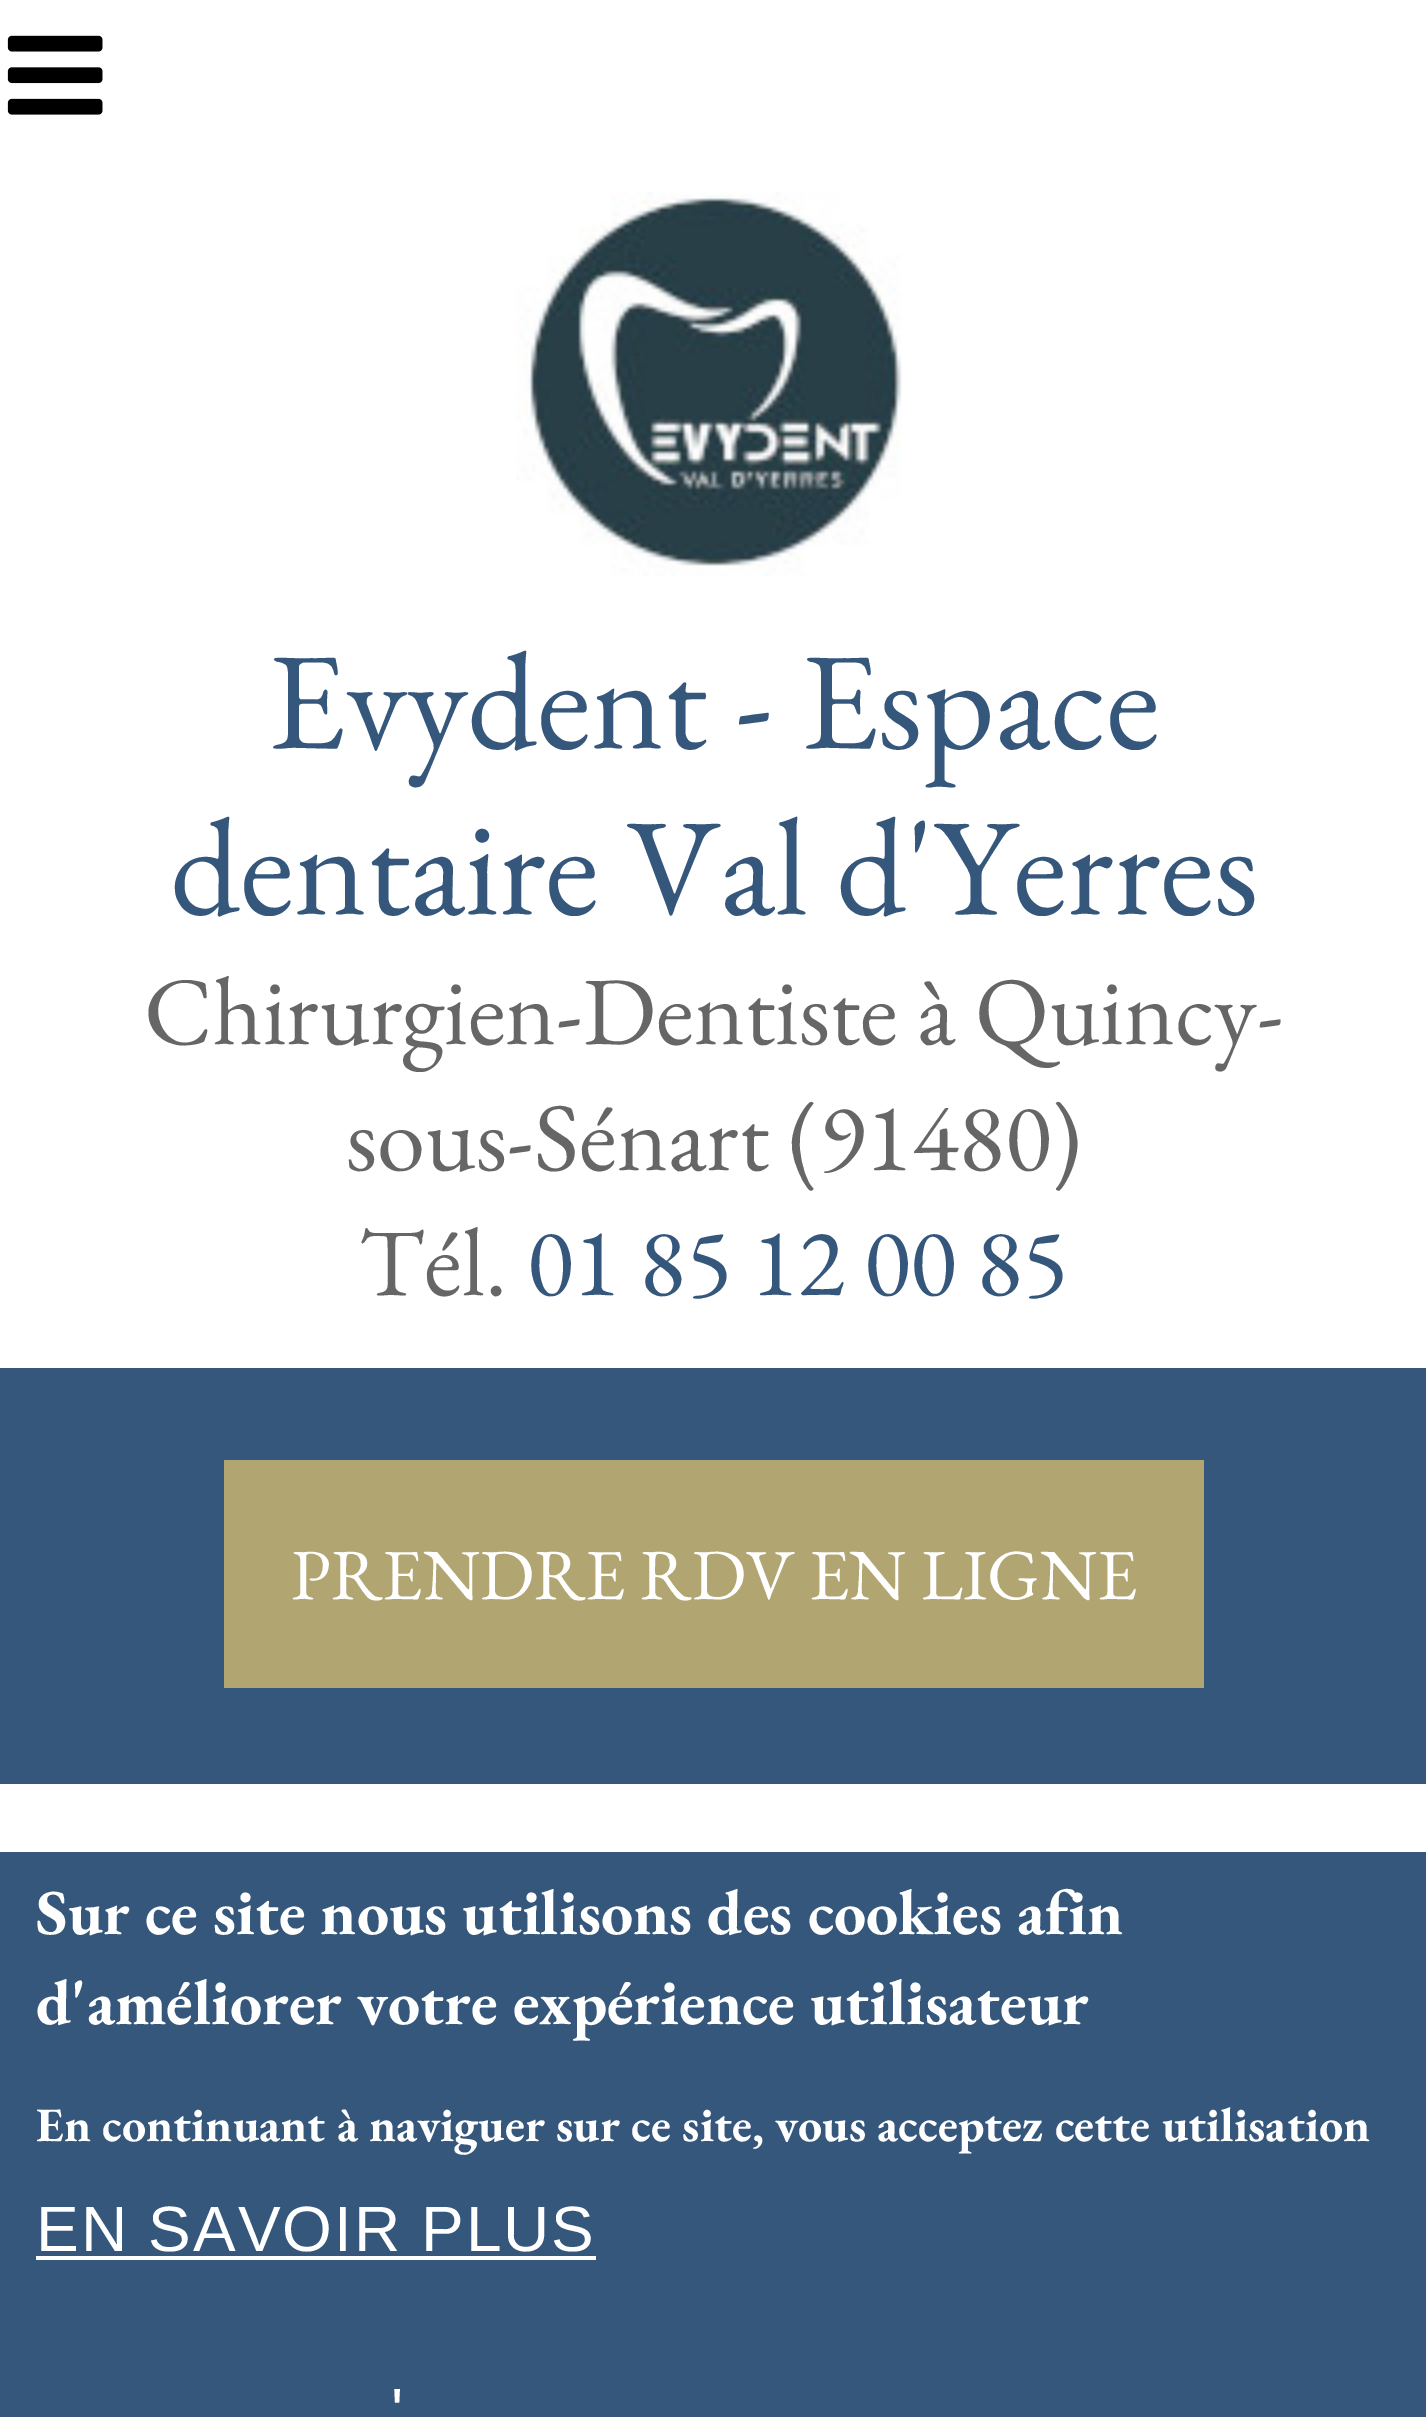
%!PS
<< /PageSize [1426 2417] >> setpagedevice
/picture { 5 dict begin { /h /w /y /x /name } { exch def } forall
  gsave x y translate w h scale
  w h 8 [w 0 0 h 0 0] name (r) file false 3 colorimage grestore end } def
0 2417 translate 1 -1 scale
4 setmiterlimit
1 setgray
0 0 1426 2417 rectfill
(img1.rgb) 516 192 386 384 picture
/EBGaramond-Regular [138.25 0 0 -138.25 0 0] selectfont
0.208 0.341 0.486 setrgbcolor
268 748 moveto (Evydent - Espace) show
170 914 moveto (dentaire Val d'Yerres) show
/EBGaramond-Regular [96.75 0 0 -96.75 0 0] selectfont
0.4 setgray
144 1044 moveto (Chirurgien-Dentiste à Quincy-) show
346 1170 moveto (sous-Sénart \(91480\)) show
359 1295 moveto (Tél.) show
0.208 0.341 0.486 setrgbcolor
527 1295 moveto (01 85 12 00 85) show
0 1368 1426 416 rectfill
(img2.rgb) 7 35 96 80 picture
0.694 0.647 0.443 setrgbcolor
224 1460 980 228 rectfill
/EBGaramond-Regular [72 0 0 -72 0 0] selectfont
1 setgray
291 1599 moveto (PRENDRE RDV EN LIGNE) show
0.208 0.341 0.486 setrgbcolor
0 1852 1426 565 rectfill
/EBGaramond-Bold [64 0 0 -64 0 0] selectfont
1 setgray
36 1934 moveto (Sur ce site nous utilisons des cookies afin) show
36 2024 moveto (d'améliorer votre expérience utilisateur) show
/EBGaramond-Bold [48 0 0 -48 0 0] selectfont
36 2141 moveto (En continuant à naviguer sur ce site, vous acceptez cette utilisation) show
/LiberationSans-Regular [64 0 0 -64 0 0] selectfont
36 2251 moveto 1.9 0 (EN SAVOIR PLUS) ashow
36 2256 560 4 rectfill
391 2433 moveto 1.9 0 (') ashow
showpage
